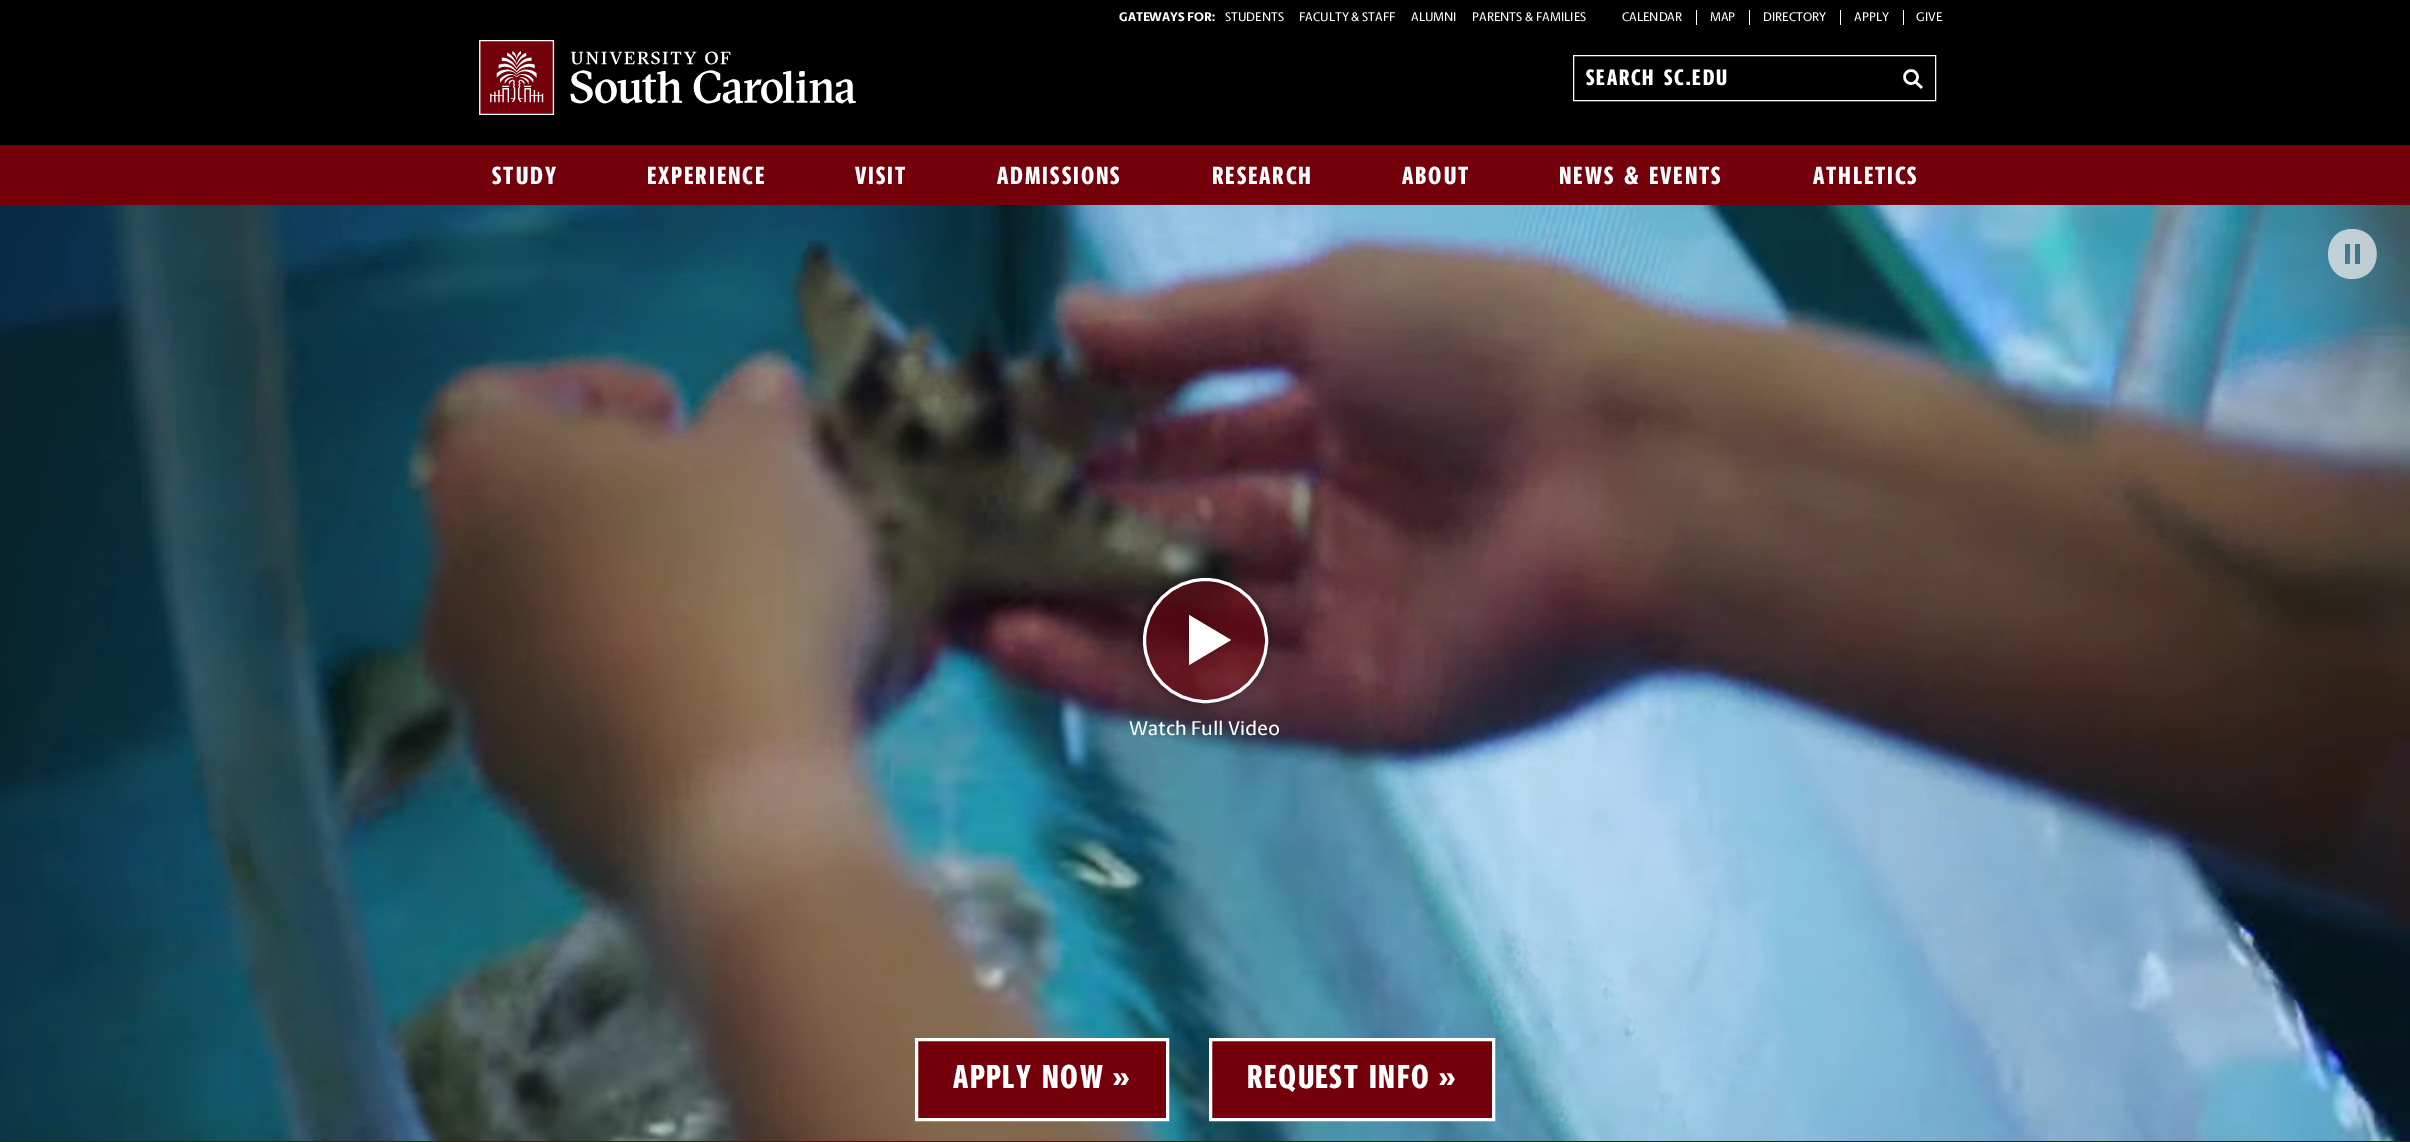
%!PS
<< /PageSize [2410 1142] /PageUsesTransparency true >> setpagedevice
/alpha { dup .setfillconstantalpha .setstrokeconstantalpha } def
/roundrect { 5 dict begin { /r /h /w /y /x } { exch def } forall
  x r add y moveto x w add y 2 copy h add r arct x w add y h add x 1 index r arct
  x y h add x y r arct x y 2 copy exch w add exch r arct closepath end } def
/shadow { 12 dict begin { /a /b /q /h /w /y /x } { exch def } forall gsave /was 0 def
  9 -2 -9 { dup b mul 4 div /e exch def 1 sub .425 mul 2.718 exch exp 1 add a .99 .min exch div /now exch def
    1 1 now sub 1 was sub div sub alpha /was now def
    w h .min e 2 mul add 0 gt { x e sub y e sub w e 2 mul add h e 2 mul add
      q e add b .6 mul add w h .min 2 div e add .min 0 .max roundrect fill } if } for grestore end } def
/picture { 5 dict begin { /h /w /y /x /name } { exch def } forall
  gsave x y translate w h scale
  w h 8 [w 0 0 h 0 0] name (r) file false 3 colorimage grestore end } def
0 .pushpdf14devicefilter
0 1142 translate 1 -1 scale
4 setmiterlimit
1 setgray
0 0 2410 1142 rectfill
0 setgray
0 0 2410 145 rectfill
/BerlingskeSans-ExtraBold [12.5 0 0 -12.5 0 0] selectfont
1 setgray
1119 21 moveto (GATEWAYS FOR:) show
/BerlingskeSans-Medium [12.5 0 0 -12.5 0 0] selectfont
1225 21 moveto (STUDENTS) show
1299 21 moveto (FACULTY & STAFF) show
1411 21 moveto (ALUMNI) show
1472 21 moveto (PARENTS & FAMILIES) show
1622 21 moveto (CALENDAR) show
1696 10 1 15 rectfill
1710 21 moveto (MAP) show
1749 10 1 15 rectfill
1763 21 moveto (DIRECTORY) show
1840 10 1 15 rectfill
1854 21 moveto (APPLY) show
1903 10 1 15 rectfill
1916 21 moveto (GIVE) show
(img1.rgb) 479 40 377 75 picture
1573.5 55.5 362 45 rectstroke
/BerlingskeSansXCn-ExtraBold [22.5 0 0 -22.5 0 0] selectfont
1586 85 moveto 1.9 0 (SEARCH) ashow
1664 85 moveto 1.9 0 (SC.EDU) ashow
2.5 setlinewidth
2 setlinecap
newpath 1921 87 moveto 1915.5 82 lineto stroke
0 setlinecap
newpath 1911 77 6.5 0 360 arc closepath stroke
0.451 0 0.039 setrgbcolor
0 145 2410 60 rectfill
/BerlingskeSansXCn-ExtraBold [25 0 0 -25 0 0] selectfont
1 setgray
492 184 moveto 1.9 0 (STUDY) ashow
647 184 moveto 1.9 0 (EXPERIENCE) ashow
855 184 moveto 1.9 0 (VISIT) ashow
997 184 moveto 1.9 0 (ADMISSIONS) ashow
1212 184 moveto 1.9 0 (RESEARCH) ashow
1402 184 moveto 1.9 0 (ABOUT) ashow
1559 184 moveto 1.9 0 (NEWS) ashow
1624 184 moveto 1.9 0 (&) ashow
1649 184 moveto 1.9 0 (EVENTS) ashow
1813 184 moveto 1.9 0 (ATHLETICS) ashow
(img2.rgb) 0 205 2410 936 picture
0.75 alpha
0.925 setgray
newpath 2352 229 moveto 2320 229 2320 279 2352 279 curveto 2385 279 2385 229 2352 229 curveto closepath 2350 264 moveto 2345 264 lineto 2345 244 lineto 2350 244 lineto closepath 2360 264 moveto 2355 264 lineto 2355 244 lineto 2360 244 lineto closepath fill
gsave
newpath 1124 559 moveto 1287 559 lineto 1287 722 lineto 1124 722 lineto closepath 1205.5 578 moveto 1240 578 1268 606 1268 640.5 curveto 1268 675 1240 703 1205.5 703 curveto 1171 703 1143 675 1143 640.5 curveto 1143 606 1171 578 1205.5 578 curveto closepath eoclip newpath
1 alpha
0 setgray
1143 578 125 125 62.5 6 0.4 shadow
grestore
0.5 alpha
0.451 0 0.039 setrgbcolor
newpath 1205.5 640.5 61 0 360 arc closepath fill
1 alpha
1 setgray
3 setlinewidth
newpath 1205.5 640.5 61 0 360 arc closepath stroke
newpath 1189 665 moveto 1189 615 lineto 1231 640 lineto closepath fill
/BerlingskeSans-Medium [20 0 0 -20 0 0] selectfont
1129 735 moveto (Watch Full Video) show
0.451 0 0.039 setrgbcolor
newpath 916.5 1039.5 moveto 1167.5 1039.5 lineto 1167.5 1119.5 lineto 916.5 1119.5 lineto closepath gsave fill grestore
1 setgray
stroke
/BerlingskeSansXCn-ExtraBold [33.5 0 0 -33.5 0 0] selectfont
953 1088 moveto 1.5 0 (APPLY) ashow
1042 1088 moveto 1.5 0 (NOW) ashow
/BerlingskeSans-ExtraBold [33.5 0 0 -33.5 0 0] selectfont
1112 1088 moveto 1.5 0 (») ashow
0.451 0 0.039 setrgbcolor
newpath 1210.5 1039.5 moveto 1493.5 1039.5 lineto 1493.5 1119.5 lineto 1210.5 1119.5 lineto closepath gsave fill grestore
1 setgray
stroke
/BerlingskeSansXCn-ExtraBold [33.5 0 0 -33.5 0 0] selectfont
1247 1088 moveto 1.5 0 (REQUEST) ashow
1369 1088 moveto 1.5 0 (INFO) ashow
/BerlingskeSans-ExtraBold [33.5 0 0 -33.5 0 0] selectfont
1438 1088 moveto 1.5 0 (») ashow
0.451 0 0.039 setrgbcolor
0 1141 2410 1 rectfill
.poppdf14devicefilter showpage
